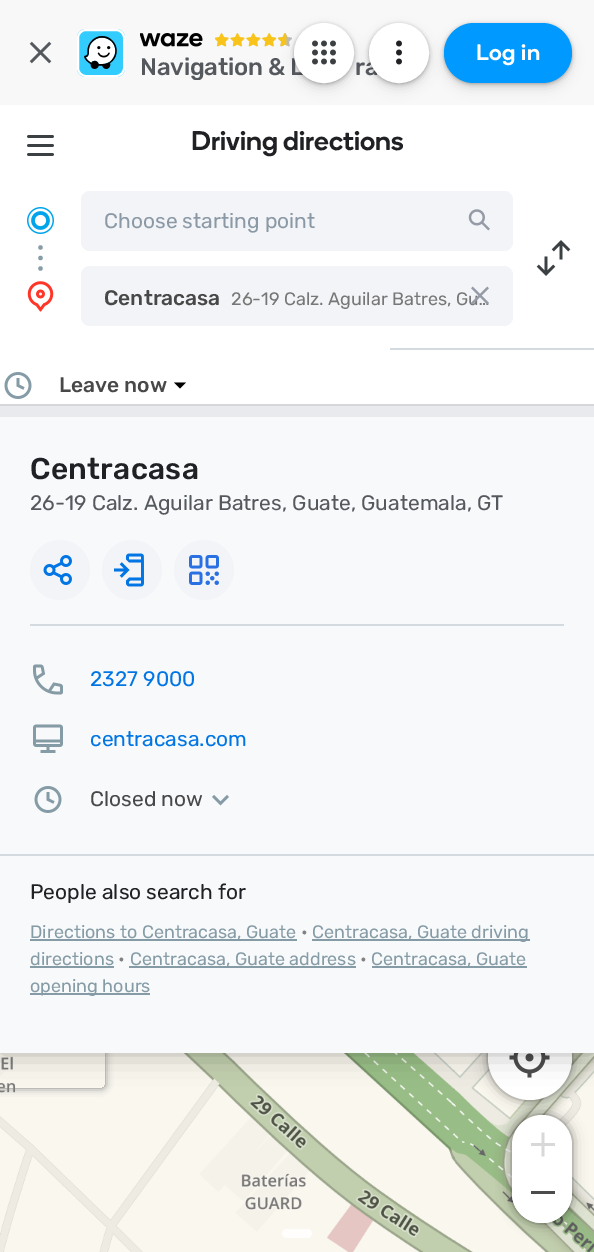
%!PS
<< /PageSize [594 1252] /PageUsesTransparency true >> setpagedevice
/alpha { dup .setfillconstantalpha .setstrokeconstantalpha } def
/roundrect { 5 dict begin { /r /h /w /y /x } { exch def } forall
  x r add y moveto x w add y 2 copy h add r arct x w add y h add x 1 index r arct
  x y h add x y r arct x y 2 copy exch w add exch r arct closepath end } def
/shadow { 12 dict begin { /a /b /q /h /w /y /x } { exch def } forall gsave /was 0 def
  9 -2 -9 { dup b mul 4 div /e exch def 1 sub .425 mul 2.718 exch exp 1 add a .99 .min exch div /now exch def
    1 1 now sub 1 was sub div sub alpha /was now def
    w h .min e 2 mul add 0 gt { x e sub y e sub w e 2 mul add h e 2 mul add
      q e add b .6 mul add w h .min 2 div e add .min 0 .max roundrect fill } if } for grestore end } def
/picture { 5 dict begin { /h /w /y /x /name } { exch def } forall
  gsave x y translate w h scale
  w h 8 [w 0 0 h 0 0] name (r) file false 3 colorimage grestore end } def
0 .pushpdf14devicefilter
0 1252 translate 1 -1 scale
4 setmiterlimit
1 setgray
0 0 594 1252 rectfill
(img25.rgb) 455 1053 139 99 picture
0 setgray
488 1016 84 84 42 7.5 0.3 shadow
488 1016 84 84 42 3 0.3 shadow
1 setgray
newpath 530 1058 42 0 360 arc closepath fill
(img21.rgb) 509 1053 41 25 picture
(img23.rgb) 0 1053 71 99 picture
(img24.rgb) 71 1053 384 99 picture
0 setgray
0 105 594 948 0 15 0.3 shadow
0.973 setgray
0 0 594 105 rectfill
(img1.rgb) 29 41 23 23 picture
0.2 0.8 1 setrgbcolor
77 29 48 48 9 roundrect fill
(img2.rgb) 84 36 33 33 picture
1 setgray
2 setlinewidth
78 30 46 46 8 roundrect stroke
(img3.rgb) 140 33 63 14 picture
(img4.rgb) 215 33 77 14 picture
gsave
140 56 327 24 rectclip
/Rubik-Medium [24 0 0 -24 0 0] selectfont
0.333 0.349 0.369 setrgbcolor
140 75 moveto -0.25 0 (Navigation & L) ashow
grestore
/Rubik-Medium [24 0 0 -24 0 0] selectfont
0.333 0.349 0.369 setrgbcolor
355 75 moveto -0.25 0 (ra) ashow
1 setgray
0 105 594 299 rectfill
0.235 0.251 0.263 setrgbcolor
294 29 60 60 30 6 0.15 shadow
0 setgray
294 24 60 60 30 2 0.3 shadow
1 setgray
newpath 324 53 28.5 0 360 arc closepath gsave fill grestore
3 setlinewidth
stroke
(img5.rgb) 312 40 24 25 picture
0.235 0.251 0.263 setrgbcolor
369 29 60 60 30 6 0.15 shadow
0 setgray
369 24 60 60 30 2 0.3 shadow
1 setgray
newpath 399 53 28.5 0 360 arc closepath gsave fill grestore
stroke
(img6.rgb) 396 40 6 25 picture
0.235 0.251 0.263 setrgbcolor
444 29 128 60 30 6 0.15 shadow
0 setgray
444 24 128 60 30 2 0.3 shadow
0 0.6 1 setrgbcolor
444 23 128 60 30 roundrect fill
/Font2-Medium [22.5 0 0 -22.5 0 0] selectfont
1 setgray
476 60 moveto 0.5 0 (Log in) ashow
(img7.rgb) 27 135 27 21 picture
/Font-Medium [27 0 0 -27 0 0] selectfont
0.125 0.129 0.141 setrgbcolor
191 150 moveto (Driving directions) show
0.525 0.612 0.655 setrgbcolor
newpath 40.5 247.5 2.2 0 360 arc closepath fill
newpath 40.5 258 2.2 0 360 arc closepath fill
newpath 40.5 268.5 2.2 0 360 arc closepath fill
(img8.rgb) 27 207 27 27 picture
0.949 0.957 0.969 setrgbcolor
81 191 432 60 9 roundrect fill
/Rubik-Regular [21 0 0 -21 0 0] selectfont
0.545 0.596 0.647 setrgbcolor
104 228 moveto (Choose starting point) show
(img9.rgb) 468 209 22 22 picture
(img10.rgb) 536 240 35 36 picture
(img11.rgb) 27 281 27 31 picture
0.949 0.957 0.969 setrgbcolor
81 266 432 60 9 roundrect fill
/Rubik-Regular [18 0 0 -18 0 0] selectfont
0.467 setgray
231 305 moveto (26-19 Calz. Aguilar Batres, Gu…) show
(img12.rgb) 471 286 18 19 picture
/Rubik-Medium [21 0 0 -21 0 0] selectfont
0.282 setgray
104 305 moveto (Centracasa) show
0.827 0.855 0.878 setrgbcolor
390 348 204 2 rectfill
(img13.rgb) 4 372 28 27 picture
0.282 setgray
59 392 moveto (Leave now) show
0 setgray
newpath 174 382.5 moveto 186 382.5 lineto 180 388.5 lineto closepath fill
0.835 0.843 0.859 setrgbcolor
0 404 594 2 rectfill
0.973 0.976 0.98 setrgbcolor
0 417 594 437 rectfill
0.91 0.918 0.929 setrgbcolor
0 406 594 11 rectfill
0.827 0.855 0.878 setrgbcolor
30 624 534 2 rectfill
/Rubik-Medium [30 0 0 -30 0 0] selectfont
0.125 0.129 0.141 setrgbcolor
30 479 moveto 0.25 0 (Centracasa) ashow
/Rubik-Regular [21 0 0 -21 0 0] selectfont
0.333 0.349 0.369 setrgbcolor
30 510 moveto (26-19 Calz. Aguilar Batres, Guate, Guatemala, GT) show
0.949 0.957 0.969 setrgbcolor
newpath 60 570 30 0 360 arc closepath fill
(img14.rgb) 43 555 29 30 picture
newpath 132 570 30 0 360 arc closepath fill
(img15.rgb) 114 553 30 34 picture
newpath 204 570 30 0 360 arc closepath fill
(img16.rgb) 189 555 30 30 picture
(img17.rgb) 33 664 30 31 picture
0 0.459 0.89 setrgbcolor
90 686 moveto (2327 9000) show
(img18.rgb) 33 724 30 29 picture
90 746 moveto (centracasa.com) show
(img19.rgb) 34 786 28 27 picture
0.282 setgray
90 806 moveto (Closed now) show
(img20.rgb) 212 795 17 11 picture
gsave
newpath 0 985 moveto 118 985 lineto 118 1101 lineto 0 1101 lineto closepath -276 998 moveto 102 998 lineto 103.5 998 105 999.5 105 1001 curveto 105 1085 lineto 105 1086.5 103.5 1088 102 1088 curveto -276 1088 lineto -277.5 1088 -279 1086.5 -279 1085 curveto -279 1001 lineto -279 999.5 -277.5 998 -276 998 curveto closepath eoclip newpath
0.502 setgray
-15 998 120 90 3 4 1 shadow
grestore
0.973 0.976 0.98 setrgbcolor
0 856 594 197 rectfill
0.827 0.855 0.878 setrgbcolor
0 854 594 2 rectfill
0.125 0.129 0.141 setrgbcolor
30 899 moveto (People also search for) show
0.522 0.608 0.651 setrgbcolor
30 939 267 2 rectfill
/Rubik-Regular [18 0 0 -18 0 0] selectfont
30 938 moveto (Directions to Centracasa, Guate) show
0.506 setgray
301 938 moveto (•) show
0.522 0.608 0.651 setrgbcolor
312 939 218 2 rectfill
312 938 moveto (Centracasa, Guate driving) show
30 965 moveto (directions) show
30 966 84 2 rectfill
0.506 setgray
118 965 moveto (•) show
0.522 0.608 0.651 setrgbcolor
129 966 227 2 rectfill
130 965 moveto (Centracasa, Guate address) show
0.506 setgray
360 965 moveto (•) show
0.522 0.608 0.651 setrgbcolor
372 966 155 2 rectfill
371 965 moveto (Centracasa, Guate) show
30 993 120 2 rectfill
30 992 moveto (opening hours) show
(img27.rgb) 71 1152 384 100 picture
1 0.996 0.992 setrgbcolor
282 1229 30 9 4.5 roundrect fill
(img28.rgb) 455 1152 139 100 picture
0 setgray
512 1115 60 108 30 7.5 0.3 shadow
512 1115 60 108 30 3 0.3 shadow
1 setgray
512 1115 60 108 30 roundrect fill
(img22.rgb) 531 1132 24 25 picture
newpath 512 1169 moveto 572 1169 lineto 572 1193 lineto 572 1209.5 558.5 1223 542 1223 curveto 525.5 1223 512 1209.5 512 1193 curveto closepath fill
0.298 setgray
531 1191 24 3 rectfill
(img26.rgb) 0 1152 71 100 picture
.poppdf14devicefilter showpage
